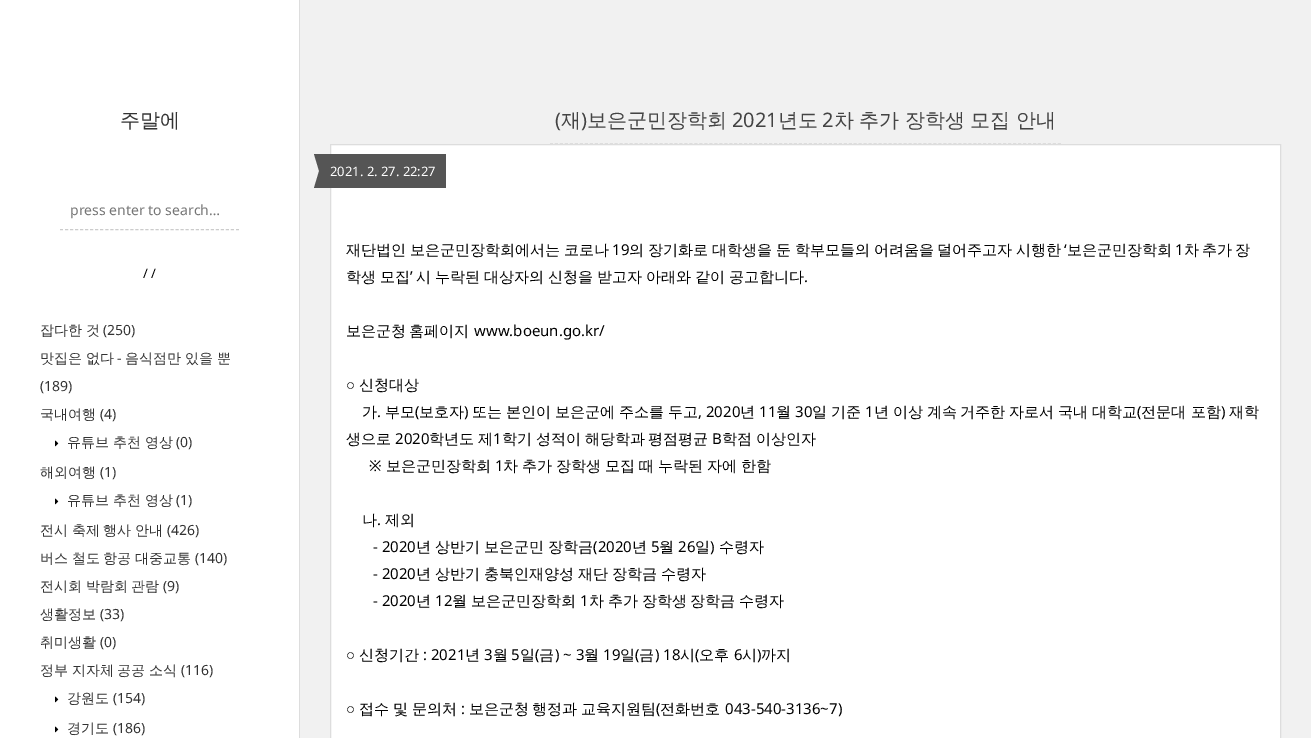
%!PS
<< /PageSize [1311 738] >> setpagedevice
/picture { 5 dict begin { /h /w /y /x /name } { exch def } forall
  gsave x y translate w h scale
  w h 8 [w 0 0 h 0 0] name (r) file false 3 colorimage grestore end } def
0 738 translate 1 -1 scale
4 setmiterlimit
0.945 setgray
0 0 1311 738 rectfill
1 setgray
0 0 299 738 rectfill
0.867 setgray
299 0 1 738 rectfill
/WenQuanYiZenHei-Medium [20 0 0 -20 0 0] selectfont
0.2 setgray
120 127 moveto (주말에) show
0.8 setgray
[3 2.03] 0 setdash
newpath 60 229.5 moveto 239 229.5 lineto stroke
/NotoSans-Regular [14 0 0 -14 0 0] selectfont
0.459 setgray
70 215 moveto (press enter to search…) show
/NotoSans-Regular [13 0 0 -13 0 0] selectfont
0 setgray
143 278 moveto (/ /) show
/WenQuanYiZenHei-Medium [14 0 0 -14 0 0] selectfont
0.2 setgray
40 335 moveto -0.5 0 32 (잡다한 것) widthshow
/NotoSans-Regular [14 0 0 -14 0 0] selectfont
103 335 moveto (\(250\)) show
/WenQuanYiZenHei-Medium [14 0 0 -14 0 0] selectfont
40 363 moveto (맛집은 없다) show
/NotoSans-Regular [14 0 0 -14 0 0] selectfont
117 363 moveto (-) show
/WenQuanYiZenHei-Medium [14 0 0 -14 0 0] selectfont
125 363 moveto (음식점만 있을 뿐) show
/NotoSans-Regular [14 0 0 -14 0 0] selectfont
40 391 moveto (\(189\)) show
/WenQuanYiZenHei-Medium [14 0 0 -14 0 0] selectfont
40 419 moveto (국내여행) show
/NotoSans-Regular [14 0 0 -14 0 0] selectfont
100 419 moveto (\(4\)) show
(img1.rgb) 55 440 4 7 picture
/WenQuanYiZenHei-Medium [14 0 0 -14 0 0] selectfont
67 447 moveto (유튜브 추천 영상) show
/NotoSans-Regular [14 0 0 -14 0 0] selectfont
176 447 moveto (\(0\)) show
/WenQuanYiZenHei-Medium [14 0 0 -14 0 0] selectfont
40 477 moveto (해외여행) show
/NotoSans-Regular [14 0 0 -14 0 0] selectfont
100 477 moveto (\(1\)) show
(img1.rgb) 55 498 4 7 picture
/WenQuanYiZenHei-Medium [14 0 0 -14 0 0] selectfont
67 505 moveto (유튜브 추천 영상) show
/NotoSans-Regular [14 0 0 -14 0 0] selectfont
176 505 moveto (\(1\)) show
/WenQuanYiZenHei-Medium [14 0 0 -14 0 0] selectfont
40 535 moveto -0.5 0 32 (전시 축제 행사 안내) widthshow
/NotoSans-Regular [14 0 0 -14 0 0] selectfont
167 535 moveto (\(426\)) show
/WenQuanYiZenHei-Medium [14 0 0 -14 0 0] selectfont
40 563 moveto -0.5 0 32 (버스 철도 항공 대중교통) widthshow
/NotoSans-Regular [14 0 0 -14 0 0] selectfont
195 563 moveto (\(140\)) show
/WenQuanYiZenHei-Medium [14 0 0 -14 0 0] selectfont
40 591 moveto -0.5 0 32 (전시회 박람회 관람) widthshow
/NotoSans-Regular [14 0 0 -14 0 0] selectfont
163 591 moveto (\(9\)) show
/WenQuanYiZenHei-Medium [14 0 0 -14 0 0] selectfont
40 619 moveto (생활정보) show
/NotoSans-Regular [14 0 0 -14 0 0] selectfont
100 619 moveto (\(33\)) show
/WenQuanYiZenHei-Medium [14 0 0 -14 0 0] selectfont
40 647 moveto (취미생활) show
/NotoSans-Regular [14 0 0 -14 0 0] selectfont
100 647 moveto (\(0\)) show
/WenQuanYiZenHei-Medium [14 0 0 -14 0 0] selectfont
40 675 moveto -0.5 0 32 (정부 지자체) widthshow
117 675 moveto -0.5 0 32 (공공 소식) widthshow
/NotoSans-Regular [14 0 0 -14 0 0] selectfont
181 675 moveto (\(116\)) show
(img1.rgb) 55 696 4 7 picture
/WenQuanYiZenHei-Medium [14 0 0 -14 0 0] selectfont
67 703 moveto (강원도) show
/NotoSans-Regular [14 0 0 -14 0 0] selectfont
113 703 moveto (\(154\)) show
(img1.rgb) 55 726 4 7 picture
/WenQuanYiZenHei-Medium [14 0 0 -14 0 0] selectfont
67 733 moveto (경기도) show
/NotoSans-Regular [14 0 0 -14 0 0] selectfont
113 733 moveto (\(186\)) show
0.867 setgray
[3 1.98] 0 setdash
newpath 550 143.5 moveto 1061 143.5 lineto stroke
/NotoSans-Regular [20 0 0 -20 0 0] selectfont
0.267 setgray
555 127 moveto (\() show
/WenQuanYiZenHei-Medium [20 0 0 -20 0 0] selectfont
561 127 moveto (재 보은군민장학회) show
/NotoSans-Regular [20 0 0 -20 0 0] selectfont
581 127 moveto (\)) show
732 127 moveto (2021) show
/WenQuanYiZenHei-Medium [20 0 0 -20 0 0] selectfont
778 127 moveto (년도) show
/NotoSans-Regular [20 0 0 -20 0 0] selectfont
822 127 moveto (2) show
/WenQuanYiZenHei-Medium [20 0 0 -20 0 0] selectfont
834 127 moveto -0.5 0 32 (차 추가 장학생 모집 안내) widthshow
1 setgray
newpath 330.5 144.5 moveto 1280.5 144.5 lineto 1280.5 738.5 lineto 330.5 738.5 lineto closepath gsave fill grestore
0.867 setgray
[] 0 setdash
stroke
0.333 setgray
320 154 126 34 rectfill
newpath 314 154 moveto 320 154 lineto 320 174 lineto closepath fill
/NotoSans-Regular [13 0 0 -13 0 0] selectfont
1 setgray
330 176 moveto (2021. 2. 27. 22:27) show
0.333 setgray
newpath 320 188 moveto 314 188 lineto 320 168 lineto closepath fill
/WenQuanYiZenHei-Medium [15 0 0 -15 0 0] selectfont
0 setgray
346 255 moveto -0.5 0 32 (재단법인 보은군민장학회에서는 코로나) widthshow
/NotoSans-Regular [15 0 0 -15 0 0] selectfont
612 255 moveto (19) show
/WenQuanYiZenHei-Medium [15 0 0 -15 0 0] selectfont
629 255 moveto -0.5 0 32 (의 장기화로 대학생을 둔 학부모들의 어려움을) widthshow
937 255 moveto (덜어주고자) show
1016 255 moveto (시행한) show
/NotoSans-Regular [15 0 0 -15 0 0] selectfont
1064 255 moveto (‘) show
/WenQuanYiZenHei-Medium [15 0 0 -15 0 0] selectfont
1067 255 moveto (보은군민장학회) show
/NotoSans-Regular [15 0 0 -15 0 0] selectfont
1175 255 moveto (1) show
/WenQuanYiZenHei-Medium [15 0 0 -15 0 0] selectfont
1184 255 moveto (차) show
1202 255 moveto (추가) show
1235 255 moveto (장) show
346 282 moveto (학생) show
380 282 moveto (모집) show
/NotoSans-Regular [15 0 0 -15 0 0] selectfont
410 282 moveto (’) show
/WenQuanYiZenHei-Medium [15 0 0 -15 0 0] selectfont
416 282 moveto (시) show
435 282 moveto (누락된) show
484 282 moveto (대상자의) show
548 282 moveto (신청을) show
597 282 moveto (받고자) show
646 282 moveto (아래와) show
695 282 moveto (같이) show
729 282 moveto (공고합니다) show
/NotoSans-Regular [15 0 0 -15 0 0] selectfont
804 282 moveto (.) show
/WenQuanYiZenHei-Medium [15 0 0 -15 0 0] selectfont
346 336 moveto -1 0 32 (보은군청 홈페이지) widthshow
/NotoSans-Regular [15 0 0 -15 0 0] selectfont
474 336 moveto (www.boeun.go.kr/) show
/LiberationSerif-Regular [15 0 0 -15 0 0] selectfont
346 390 moveto (○) show
/WenQuanYiZenHei-Medium [15 0 0 -15 0 0] selectfont
359 390 moveto (신청대상) show
362 417 moveto (가) show
385 417 moveto (부모 보호자) show
506 417 moveto (본인이) show
555 417 moveto (보은군에) show
740 417 moveto (년) show
776 417 moveto (월) show
812 417 moveto (일) show
831 417 moveto (기준) show
874 417 moveto (년) show
893 417 moveto (이상) show
927 417 moveto (계속) show
960 417 moveto (거주한) show
1009 417 moveto (자로서) show
1058 417 moveto (국내) show
1092 417 moveto (대학교 전문대) show
1191 417 moveto (포함) show
1229 417 moveto (재학) show
/NotoSans-Regular [15 0 0 -15 0 0] selectfont
377 417 moveto (.) show
415 417 moveto (\() show
464 417 moveto (\)) show
/WenQuanYiZenHei-Medium [15 0 0 -15 0 0] selectfont
472 417 moveto (또는) show
619 417 moveto (주소를) show
668 417 moveto (두고) show
/NotoSans-Regular [15 0 0 -15 0 0] selectfont
698 417 moveto (, 2020) show
759 417 moveto (11) show
795 417 moveto (30) show
865 417 moveto (1) show
1137 417 moveto (\() show
1221 417 moveto (\)) show
/WenQuanYiZenHei-Medium [15 0 0 -15 0 0] selectfont
346 444 moveto (생으로) show
/NotoSans-Regular [15 0 0 -15 0 0] selectfont
395 444 moveto (2020) show
/WenQuanYiZenHei-Medium [15 0 0 -15 0 0] selectfont
429 444 moveto (학년도) show
478 444 moveto (제) show
/NotoSans-Regular [15 0 0 -15 0 0] selectfont
493 444 moveto (1) show
/WenQuanYiZenHei-Medium [15 0 0 -15 0 0] selectfont
502 444 moveto (학기) show
536 444 moveto (성적이) show
585 444 moveto (해당학과) show
648 444 moveto (평점평균) show
/NotoSans-Regular [15 0 0 -15 0 0] selectfont
712 444 moveto (B) show
/WenQuanYiZenHei-Medium [15 0 0 -15 0 0] selectfont
722 444 moveto (학점) show
756 444 moveto (이상인자) show
/NotoSans-Regular [15 0 0 -15 0 0] selectfont
369 471 moveto (※) show
/WenQuanYiZenHei-Medium [15 0 0 -15 0 0] selectfont
386 471 moveto (보은군민장학회) show
/NotoSans-Regular [15 0 0 -15 0 0] selectfont
495 471 moveto (1) show
/WenQuanYiZenHei-Medium [15 0 0 -15 0 0] selectfont
503 471 moveto (차) show
522 471 moveto (추가) show
556 471 moveto (장학생) show
605 471 moveto (모집) show
639 471 moveto (때) show
658 471 moveto (누락된) show
707 471 moveto (자에) show
741 471 moveto (한함) show
362 525 moveto (나) show
/NotoSans-Regular [15 0 0 -15 0 0] selectfont
377 525 moveto (.) show
/WenQuanYiZenHei-Medium [15 0 0 -15 0 0] selectfont
385 525 moveto (제외) show
/NotoSans-Regular [15 0 0 -15 0 0] selectfont
373 552 moveto (- 2020) show
/WenQuanYiZenHei-Medium [15 0 0 -15 0 0] selectfont
416 552 moveto (년) show
435 552 moveto (상반기) show
484 552 moveto (보은군민) show
548 552 moveto (장학금) show
/NotoSans-Regular [15 0 0 -15 0 0] selectfont
593 552 moveto (\(2020) show
/WenQuanYiZenHei-Medium [15 0 0 -15 0 0] selectfont
632 552 moveto (년) show
/NotoSans-Regular [15 0 0 -15 0 0] selectfont
651 552 moveto (5) show
/WenQuanYiZenHei-Medium [15 0 0 -15 0 0] selectfont
659 552 moveto (월) show
/NotoSans-Regular [15 0 0 -15 0 0] selectfont
678 552 moveto (26) show
/WenQuanYiZenHei-Medium [15 0 0 -15 0 0] selectfont
695 552 moveto (일) show
/NotoSans-Regular [15 0 0 -15 0 0] selectfont
710 552 moveto (\)) show
/WenQuanYiZenHei-Medium [15 0 0 -15 0 0] selectfont
719 552 moveto (수령자) show
/NotoSans-Regular [15 0 0 -15 0 0] selectfont
373 579 moveto (- 2020) show
/WenQuanYiZenHei-Medium [15 0 0 -15 0 0] selectfont
416 579 moveto (년) show
435 579 moveto (상반기) show
484 579 moveto (충북인재양성) show
578 579 moveto (재단) show
612 579 moveto (장학금) show
661 579 moveto (수령자) show
/NotoSans-Regular [15 0 0 -15 0 0] selectfont
373 606 moveto (- 2020) show
/WenQuanYiZenHei-Medium [15 0 0 -15 0 0] selectfont
416 606 moveto (년) show
/NotoSans-Regular [15 0 0 -15 0 0] selectfont
435 606 moveto (12) show
/WenQuanYiZenHei-Medium [15 0 0 -15 0 0] selectfont
452 606 moveto (월) show
471 606 moveto (보은군민장학회) show
/NotoSans-Regular [15 0 0 -15 0 0] selectfont
580 606 moveto (1) show
/WenQuanYiZenHei-Medium [15 0 0 -15 0 0] selectfont
589 606 moveto (차) show
608 606 moveto (추가) show
642 606 moveto (장학생) show
690 606 moveto (장학금) show
739 606 moveto (수령자) show
359 660 moveto (신청기간) show
/NotoSans-Regular [15 0 0 -15 0 0] selectfont
423 660 moveto (: 2021) show
/WenQuanYiZenHei-Medium [15 0 0 -15 0 0] selectfont
465 660 moveto (년) show
/NotoSans-Regular [15 0 0 -15 0 0] selectfont
484 660 moveto (3) show
/WenQuanYiZenHei-Medium [15 0 0 -15 0 0] selectfont
493 660 moveto (월) show
/NotoSans-Regular [15 0 0 -15 0 0] selectfont
511 660 moveto (5) show
/WenQuanYiZenHei-Medium [15 0 0 -15 0 0] selectfont
520 660 moveto (일 금) show
584 660 moveto (월) show
620 660 moveto (일 금) show
680 660 moveto (시 오후) show
742 660 moveto (시 까지) show
/LiberationSerif-Regular [15 0 0 -15 0 0] selectfont
346 660 moveto (○) show
/NotoSans-Regular [15 0 0 -15 0 0] selectfont
535 660 moveto (\() show
555 660 moveto (\) ~ 3) show
603 660 moveto (19) show
635 660 moveto (\() show
655 660 moveto (\) 18) show
695 660 moveto (\() show
734 660 moveto (6) show
757 660 moveto (\)) show
/WenQuanYiZenHei-Medium [15 0 0 -15 0 0] selectfont
359 714 moveto (접수) show
393 714 moveto (및) show
412 714 moveto (문의처) show
469 714 moveto (보은군청) show
532 714 moveto (행정과) show
581 714 moveto (교육지원팀 전화번호) show
/LiberationSerif-Regular [15 0 0 -15 0 0] selectfont
346 714 moveto (○) show
/NotoSans-Regular [15 0 0 -15 0 0] selectfont
461 714 moveto (:) show
656 714 moveto (\() show
725 714 moveto (043-540-3136~7\)) show
showpage
